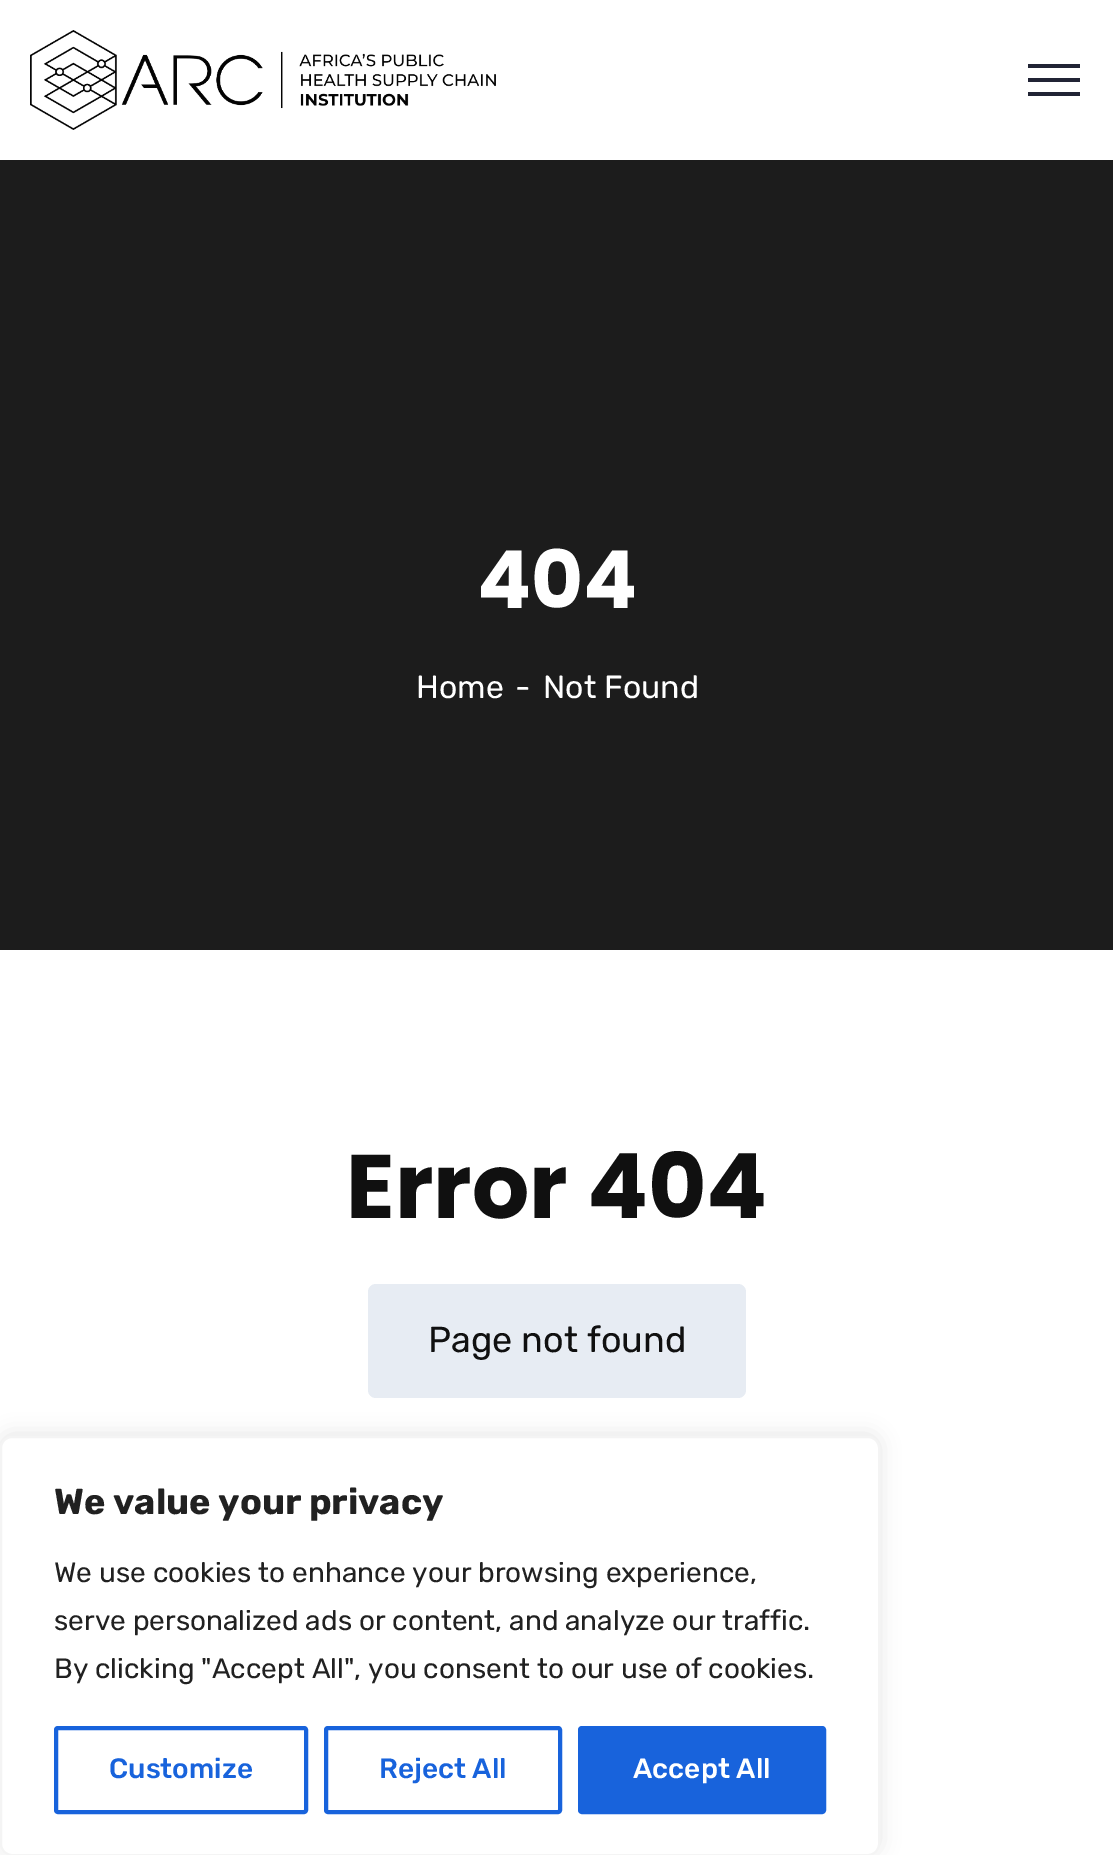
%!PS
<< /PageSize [1113 1855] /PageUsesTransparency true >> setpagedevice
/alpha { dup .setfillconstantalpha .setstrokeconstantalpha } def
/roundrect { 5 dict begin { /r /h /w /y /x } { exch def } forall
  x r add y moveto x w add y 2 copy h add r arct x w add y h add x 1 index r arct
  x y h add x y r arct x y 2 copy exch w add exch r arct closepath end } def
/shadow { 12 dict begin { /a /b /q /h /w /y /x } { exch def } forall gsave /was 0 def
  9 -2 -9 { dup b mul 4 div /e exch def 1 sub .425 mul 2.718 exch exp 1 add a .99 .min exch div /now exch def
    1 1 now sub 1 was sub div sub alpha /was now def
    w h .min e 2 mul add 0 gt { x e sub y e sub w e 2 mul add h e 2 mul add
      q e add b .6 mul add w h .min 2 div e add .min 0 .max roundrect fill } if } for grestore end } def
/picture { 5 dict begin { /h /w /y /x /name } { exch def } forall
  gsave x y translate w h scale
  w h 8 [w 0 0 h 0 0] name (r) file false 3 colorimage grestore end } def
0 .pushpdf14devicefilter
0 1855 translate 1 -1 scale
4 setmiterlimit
1 setgray
0 0 1113 1855 rectfill
(img1.rgb) 30 30 466 100 picture
0.129 0.141 0.208 setrgbcolor
1028 64 52 4 rectfill
1028 78 52 4 rectfill
1028 92 52 4 rectfill
0.11 setgray
0 160 1113 790 rectfill
/Poppins-Bold [80 0 0 -80 0 0] selectfont
1 setgray
477 608 moveto (404) show
/Rubik-Regular [32 0 0 -32 0 0] selectfont
416 698 moveto (Home) show
515 698 moveto (-) show
543 698 moveto (Not Found) show
/Poppins-Bold [90 0 0 -90 0 0] selectfont
0.063 setgray
346 1218 moveto (Error 404) show
0.906 0.925 0.953 setrgbcolor
368 1284 378 114 8 roundrect fill
/Rubik-Regular [36 0 0 -36 0 0] selectfont
0.063 setgray
428 1352 moveto (Page not found) show
0.675 0.671 0.671 setrgbcolor
0 1434 880 420 12 10 0.3 shadow
1 setgray
1 1437 878 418 11 roundrect gsave fill grestore
0.957 setgray
2 setlinewidth
stroke
/Rubik-Bold [36 0 0 -36 0 0] selectfont
0.129 setgray
54 1514 moveto (We value your privacy) show
/Rubik-Regular [28 0 0 -28 0 0] selectfont
54 1582 moveto (We use cookies to enhance your browsing experience,) show
54 1630 moveto (serve personalized ads or content, and analyze our traffic.) show
54 1678 moveto (By clicking "Accept All", you consent to our use of cookies.) show
0.094 0.388 0.863 setrgbcolor
4 setlinewidth
56 1728 250 84 2 roundrect stroke
/Rubik-Medium [28 0 0 -28 0 0] selectfont
109 1778 moveto (Customize) show
326 1728 234 84 2 roundrect stroke
379 1778 moveto (Reject All) show
580 1728 244 84 2 roundrect gsave fill grestore
stroke
1 setgray
633 1778 moveto (Accept All) show
.poppdf14devicefilter showpage
